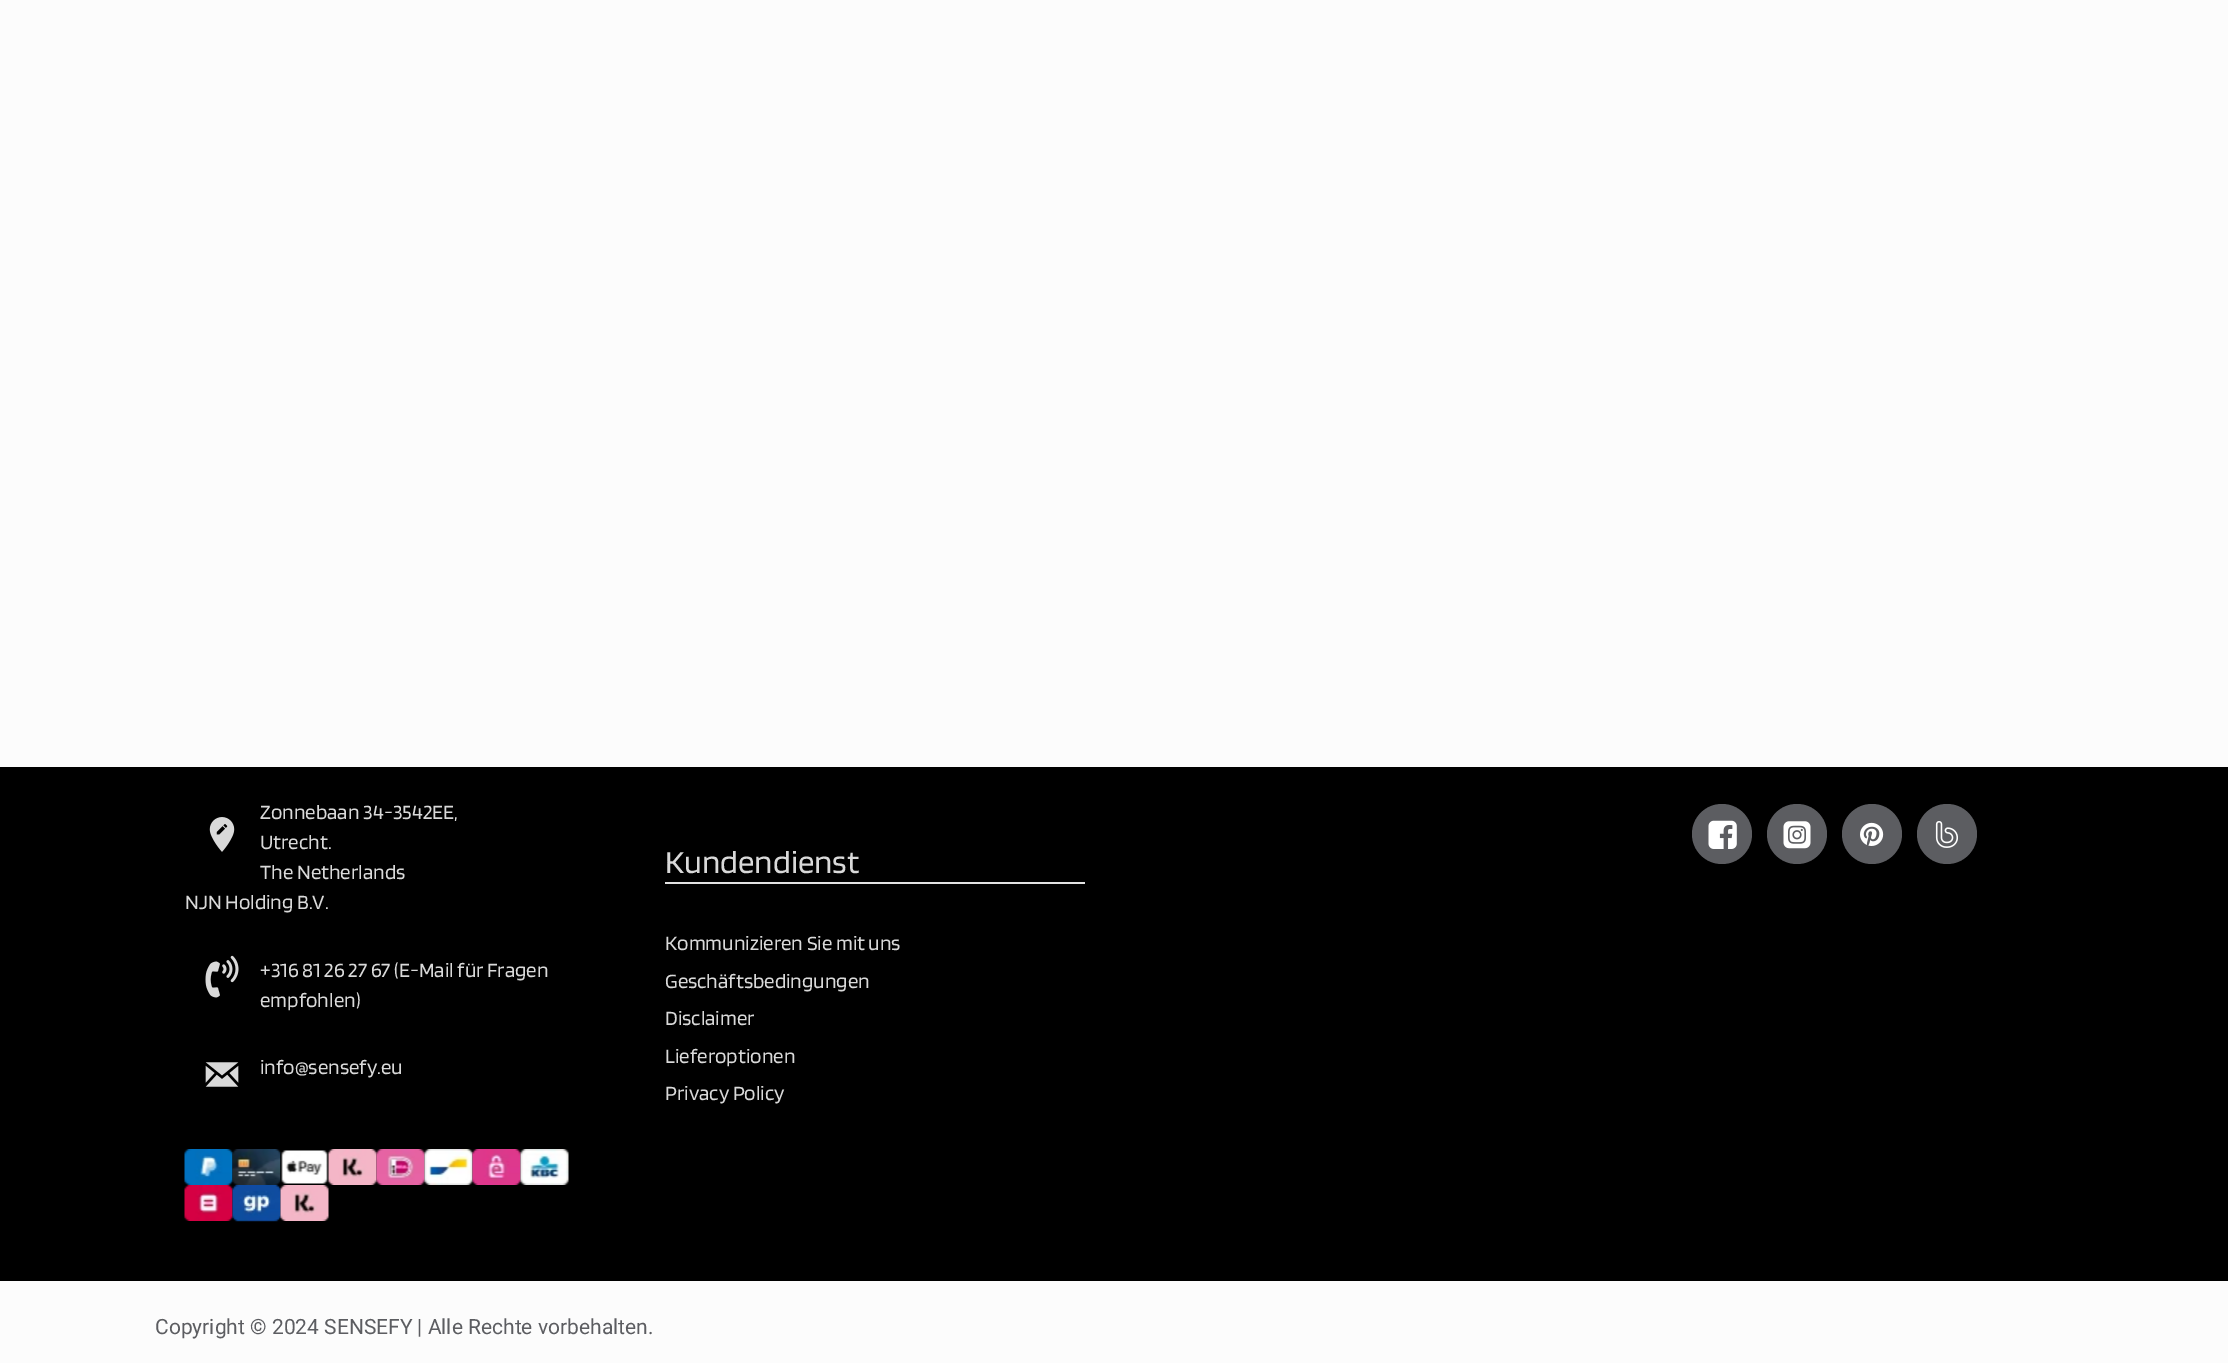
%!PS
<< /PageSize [2228 1363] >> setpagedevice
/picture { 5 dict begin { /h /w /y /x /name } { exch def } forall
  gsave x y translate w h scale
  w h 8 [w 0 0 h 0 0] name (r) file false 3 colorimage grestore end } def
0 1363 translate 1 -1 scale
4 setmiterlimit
0.988 setgray
0 0 2228 1363 rectfill
0 setgray
0 767 2228 514 rectfill
/Blinker-Regular [21 0 0 -21 0 0] selectfont
0.851 setgray
260 819 moveto (Zonnebaan 34-3542EE,) show
260 849 moveto (Utrecht.) show
260 879 moveto (The Netherlands) show
185 909 moveto (NJN Holding B.V.) show
(img1.rgb) 209 817 26 35 picture
(img2.rgb) 205 955 34 43 picture
260 977 moveto (+316 81 26 27 67 \(E-Mail für Fragen) show
260 1007 moveto (empfohlen\)) show
(img3.rgb) 205 1062 34 25 picture
260 1074 moveto (info@sensefy.eu) show
0.886 setgray
665 882 420 2 rectfill
/Blinker-Regular [33 0 0 -33 0 0] selectfont
0.851 setgray
665 873 moveto (Kundendienst) show
/Blinker-Regular [21 0 0 -21 0 0] selectfont
665 950 moveto (Kommunizieren Sie mit uns) show
665 988 moveto (Geschäftsbedingungen) show
665 1025 moveto (Disclaimer) show
665 1063 moveto (Lieferoptionen) show
665 1100 moveto (Privacy Policy) show
0.361 0.365 0.38 setrgbcolor
newpath 1722 834 30 0 360 arc closepath fill
(img4.rgb) 1708 820 29 29 picture
newpath 1797 834 30 0 360 arc closepath fill
(img5.rgb) 1783 821 28 28 picture
newpath 1872 834 30 0 360 arc closepath fill
(img6.rgb) 1860 822 24 24 picture
newpath 1947 834 30 0 360 arc closepath fill
(img7.rgb) 1935 821 23 27 picture
(img8.rgb) 184 1149 49 36 picture
(img9.rgb) 232 1149 49 36 picture
(img10.rgb) 280 1150 48 34 picture
(img11.rgb) 328 1149 49 36 picture
(img12.rgb) 376 1149 49 36 picture
(img13.rgb) 424 1149 49 36 picture
(img14.rgb) 472 1149 49 36 picture
(img15.rgb) 520 1149 49 36 picture
(img16.rgb) 184 1185 49 36 picture
(img17.rgb) 232 1185 49 37 picture
(img18.rgb) 280 1185 49 36 picture
/Roboto-Regular [21 0 0 -21 0 0] selectfont
155 1334 moveto (Copyright © 2024 SENSEFY | Alle Rechte vorbehalten.) show
showpage
